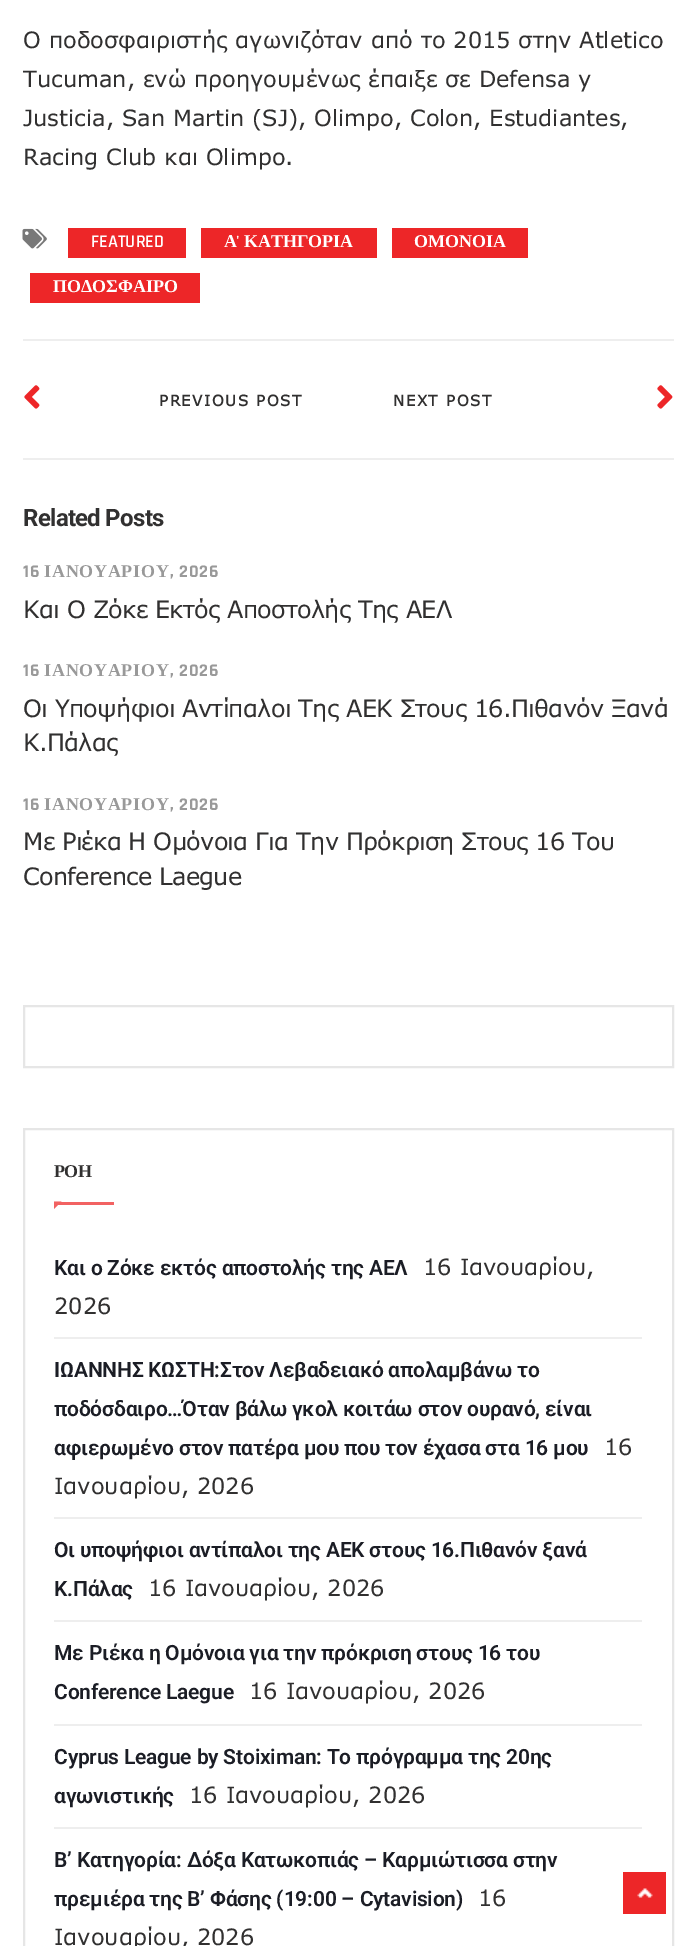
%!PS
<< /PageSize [696 1946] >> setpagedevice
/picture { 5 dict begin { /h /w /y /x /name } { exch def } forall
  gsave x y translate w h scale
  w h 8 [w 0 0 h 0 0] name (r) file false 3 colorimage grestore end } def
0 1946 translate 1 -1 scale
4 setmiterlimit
1 setgray
0 0 696 1946 rectfill
/Verdana-Regular [22.5 0 0 -22.5 0 0] selectfont
0.192 0.188 0.188 setrgbcolor
23 48 moveto (Ο ποδοσφαιριστής αγωνιζόταν από το 2015 στην Atletico) show
23 87 moveto (Tucuman, ενώ προηγουμένως έπαιξε σε Defensa y) show
23 126 moveto (Justicia, San Martin \(SJ\), Olimpo, Colon, Estudiantes,) show
23 165 moveto (Racing Club και Olimpo.) show
(img1.rgb) 22 228 25 21 picture
0.929 0.149 0.157 setrgbcolor
68 228 118 30 rectfill
/Rajdhani-SemiBold [18 0 0 -18 0 0] selectfont
1 setgray
91 247 moveto (FEATURED) show
0.929 0.149 0.157 setrgbcolor
201 228 176 30 rectfill
/LiberationSerif-Bold [18 0 0 -18 0 0] selectfont
1 setgray
224 247 moveto (Α) show
/Rajdhani-SemiBold [18 0 0 -18 0 0] selectfont
236 247 moveto (') show
/LiberationSerif-Bold [18 0 0 -18 0 0] selectfont
244 247 moveto (ΚΑΤΗΓΟΡΙΑ) show
0.929 0.149 0.157 setrgbcolor
392 228 136 30 rectfill
1 setgray
414 247 moveto (ΟΜΟΝΟΙΑ) show
0.929 0.149 0.157 setrgbcolor
30 273 170 30 rectfill
1 setgray
53 292 moveto (ΠΟΔΟΣΦΑΙΡΟ) show
0.933 setgray
23 339 651 2 rectfill
23 458 651 2 rectfill
(img2.rgb) 24 385 16 24 picture
/Verdana-Bold [15 0 0 -15 0 0] selectfont
0.192 0.188 0.188 setrgbcolor
159 406 moveto 1.5 0 (PREVIOUS POST) ashow
393 406 moveto 1.5 0 (NEXT POST) ashow
(img3.rgb) 657 385 16 24 picture
/Roboto-Bold [24 0 0 -24 0 0] selectfont
23 526 moveto -0.72 0 (Related Posts) ashow
/Rajdhani-Bold [18 0 0 -18 0 0] selectfont
0.6 setgray
23 577 moveto 0.75 0 (16) ashow
/LiberationSerif-Bold [18 0 0 -18 0 0] selectfont
44 577 moveto 0.75 0 (ΙΑΝΟΥΑΡΙΟΥ) ashow
/Rajdhani-Bold [18 0 0 -18 0 0] selectfont
170 577 moveto 0.75 0 (, 2026) ashow
/Verdana-Regular [24 0 0 -24 0 0] selectfont
0.192 0.188 0.188 setrgbcolor
23 618 moveto -0.72 0 (Και Ο Ζόκε Εκτός Αποστολής Της ΑΕΛ) ashow
/Rajdhani-Bold [18 0 0 -18 0 0] selectfont
0.6 setgray
23 676 moveto 0.75 0 (16) ashow
/LiberationSerif-Bold [18 0 0 -18 0 0] selectfont
44 676 moveto 0.75 0 (ΙΑΝΟΥΑΡΙΟΥ) ashow
/Rajdhani-Bold [18 0 0 -18 0 0] selectfont
170 676 moveto 0.75 0 (, 2026) ashow
/Verdana-Regular [24 0 0 -24 0 0] selectfont
0.192 0.188 0.188 setrgbcolor
23 717 moveto -0.72 0 (Οι Υποψήφιοι Αντίπαλοι Της ΑΕΚ Στους 16.Πιθανόν Ξανά) ashow
23 751 moveto -0.72 0 (Κ.Πάλας) ashow
/Rajdhani-Bold [18 0 0 -18 0 0] selectfont
0.6 setgray
23 810 moveto 0.75 0 (16) ashow
/LiberationSerif-Bold [18 0 0 -18 0 0] selectfont
44 810 moveto 0.75 0 (ΙΑΝΟΥΑΡΙΟΥ) ashow
/Rajdhani-Bold [18 0 0 -18 0 0] selectfont
170 810 moveto 0.75 0 (, 2026) ashow
/Verdana-Regular [24 0 0 -24 0 0] selectfont
0.192 0.188 0.188 setrgbcolor
23 850 moveto -0.72 0 (Με Ριέκα Η Ομόνοια Για Την Πρόκριση Στους 16 Του) ashow
23 885 moveto -0.72 0 (Conference Laegue) ashow
0.902 setgray
2 setlinewidth
24 1006 649 61 rectstroke
24 1129 649 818 rectstroke
/LiberationSerif-Bold [18 0 0 -18 0 0] selectfont
0.192 0.188 0.188 setrgbcolor
54 1177 moveto -0.5 0 (ΡΟΗ) ashow
0.949 0.384 0.384 setrgbcolor
newpath 54 1201.5 moveto 61.5 1201.5 lineto 54 1209 lineto closepath fill
54 1202 60 3 rectfill
0.933 setgray
54 1337 588 2 rectfill
/Roboto-SemiBold [21 0 0 -21 0 0] selectfont
0.106 0.114 0.145 setrgbcolor
54 1275 moveto -0.2 0 (Και ο Ζόκε εκτός αποστολής της ΑΕΛ) ashow
/Verdana-Regular [22.5 0 0 -22.5 0 0] selectfont
0.192 0.188 0.188 setrgbcolor
423 1275 moveto (16 Ιανουαρίου,) show
54 1314 moveto (2026) show
0.933 setgray
54 1517 588 2 rectfill
/Roboto-SemiBold [21 0 0 -21 0 0] selectfont
0.106 0.114 0.145 setrgbcolor
54 1377 moveto -0.2 0 (IΩΑΝΝΗΣ ΚΩΣΤΗ:Στον Λεβαδειακό απολαμβάνω το) ashow
54 1416 moveto -0.2 0 (ποδόσδαιρο…Όταν βάλω γκολ κοιτάω στον ουρανό, είναι) ashow
54 1455 moveto -0.2 0 (αφιερωμένο στον πατέρα μου που τον έχασα στα 16 μου) ashow
/Verdana-Regular [22.5 0 0 -22.5 0 0] selectfont
0.192 0.188 0.188 setrgbcolor
604 1455 moveto (16) show
54 1494 moveto (Ιανουαρίου, 2026) show
0.933 setgray
54 1620 588 2 rectfill
/Roboto-SemiBold [21 0 0 -21 0 0] selectfont
0.106 0.114 0.145 setrgbcolor
54 1557 moveto -0.2 0 (Οι υποψήφιοι αντίπαλοι της ΑΕΚ στους 16.Πιθανόν ξανά) ashow
54 1596 moveto -0.2 0 (Κ.Πάλας) ashow
/Verdana-Regular [22.5 0 0 -22.5 0 0] selectfont
0.192 0.188 0.188 setrgbcolor
148 1596 moveto (16 Ιανουαρίου, 2026) show
0.933 setgray
54 1724 588 2 rectfill
/Roboto-SemiBold [21 0 0 -21 0 0] selectfont
0.106 0.114 0.145 setrgbcolor
54 1660 moveto -0.2 0 (Με Ριέκα η Ομόνοια για την πρόκριση στους 16 του) ashow
54 1699 moveto -0.2 0 (Conference Laegue) ashow
/Verdana-Regular [22.5 0 0 -22.5 0 0] selectfont
0.192 0.188 0.188 setrgbcolor
249 1699 moveto (16 Ιανουαρίου, 2026) show
0.933 setgray
54 1827 588 2 rectfill
/Roboto-SemiBold [21 0 0 -21 0 0] selectfont
0.106 0.114 0.145 setrgbcolor
54 1764 moveto -0.2 0 (Cyprus League by Stoiximan: Το πρόγραμμα της 20ης) ashow
54 1803 moveto -0.2 0 (αγωνιστικής) ashow
/Verdana-Regular [22.5 0 0 -22.5 0 0] selectfont
0.192 0.188 0.188 setrgbcolor
189 1803 moveto (16 Ιανουαρίου, 2026) show
/Roboto-SemiBold [21 0 0 -21 0 0] selectfont
0.106 0.114 0.145 setrgbcolor
54 1867 moveto -0.2 0 (Β’ Κατηγορία: Δόξα Κατωκοπιάς – Καρμιώτισσα στην) ashow
54 1906 moveto -0.2 0 (πρεμιέρα της Β’ Φάσης \(19:00 – Cytavision\)) ashow
/Verdana-Regular [22.5 0 0 -22.5 0 0] selectfont
0.192 0.188 0.188 setrgbcolor
478 1906 moveto (16) show
54 1945 moveto (Ιανουαρίου, 2026) show
0.929 0.149 0.157 setrgbcolor
623 1872 43 42 rectfill
(img4.rgb) 637 1888 16 10 picture
showpage
